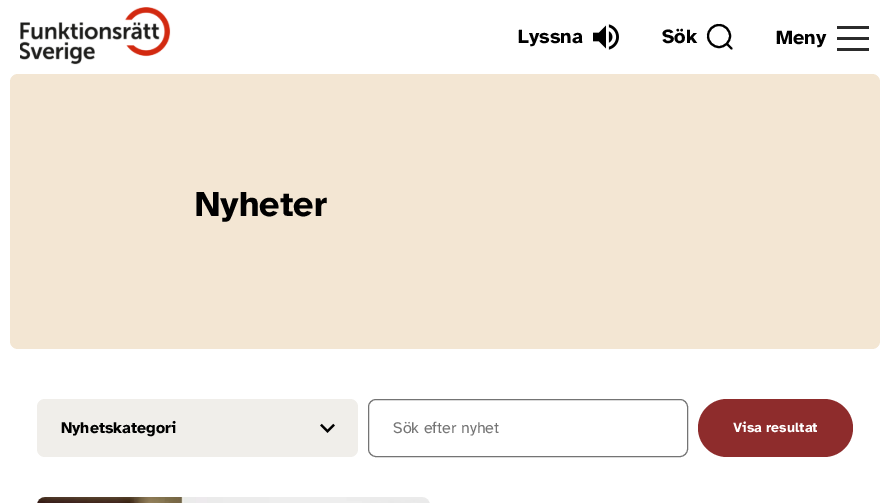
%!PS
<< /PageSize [890 503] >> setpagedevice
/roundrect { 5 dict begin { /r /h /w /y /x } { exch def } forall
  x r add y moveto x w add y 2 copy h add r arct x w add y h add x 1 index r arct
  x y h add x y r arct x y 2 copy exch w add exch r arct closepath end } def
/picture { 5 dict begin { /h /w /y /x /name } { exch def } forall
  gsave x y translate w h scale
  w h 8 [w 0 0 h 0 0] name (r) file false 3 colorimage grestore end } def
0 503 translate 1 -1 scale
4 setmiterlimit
1 setgray
0 0 890 503 rectfill
(img1.rgb) 20 7 151 58 picture
/AtkinsonHyperlegible-Bold [20 0 0 -20 0 0] selectfont
0 setgray
518 43 moveto (Lyssna) show
(img2.rgb) 593 24 26 26 picture
662 43 moveto (Sök) show
2.1 setlinewidth
newpath 719 36 11 0 360 arc closepath stroke
1 setlinecap
1 setlinejoin
newpath 731.5 48.5 moveto 727 44 lineto stroke
776 44 moveto (Meny) show
(img3.rgb) 837 26 32 25 picture
0.953 0.902 0.827 setrgbcolor
10 74 870 275 8 roundrect fill
/AtkinsonHyperlegible-Bold [36 0 0 -36 0 0] selectfont
0 setgray
195 216 moveto (Nyheter) show
0.941 0.933 0.918 setrgbcolor
37 399 321 58 8 roundrect fill
(img4.rgb) 320 423 15 10 picture
/AtkinsonHyperlegible-Bold [16 0 0 -16 0 0] selectfont
0 setgray
61 433 moveto (Nyhetskategori) show
0.455 setgray
1 setlinewidth
0 setlinecap
0 setlinejoin
368.5 399.5 319 57 7.5 roundrect stroke
/AtkinsonHyperlegible-Regular [16 0 0 -16 0 0] selectfont
0.459 setgray
393 433 moveto (Sök efter nyhet) show
0.557 0.173 0.173 setrgbcolor
698 399 155 58 29 roundrect fill
/AtkinsonHyperlegible-Bold [14 0 0 -14 0 0] selectfont
1 setgray
733 432 moveto (Visa resultat) show
(img5.rgb) 37 497 393 6 picture
showpage
